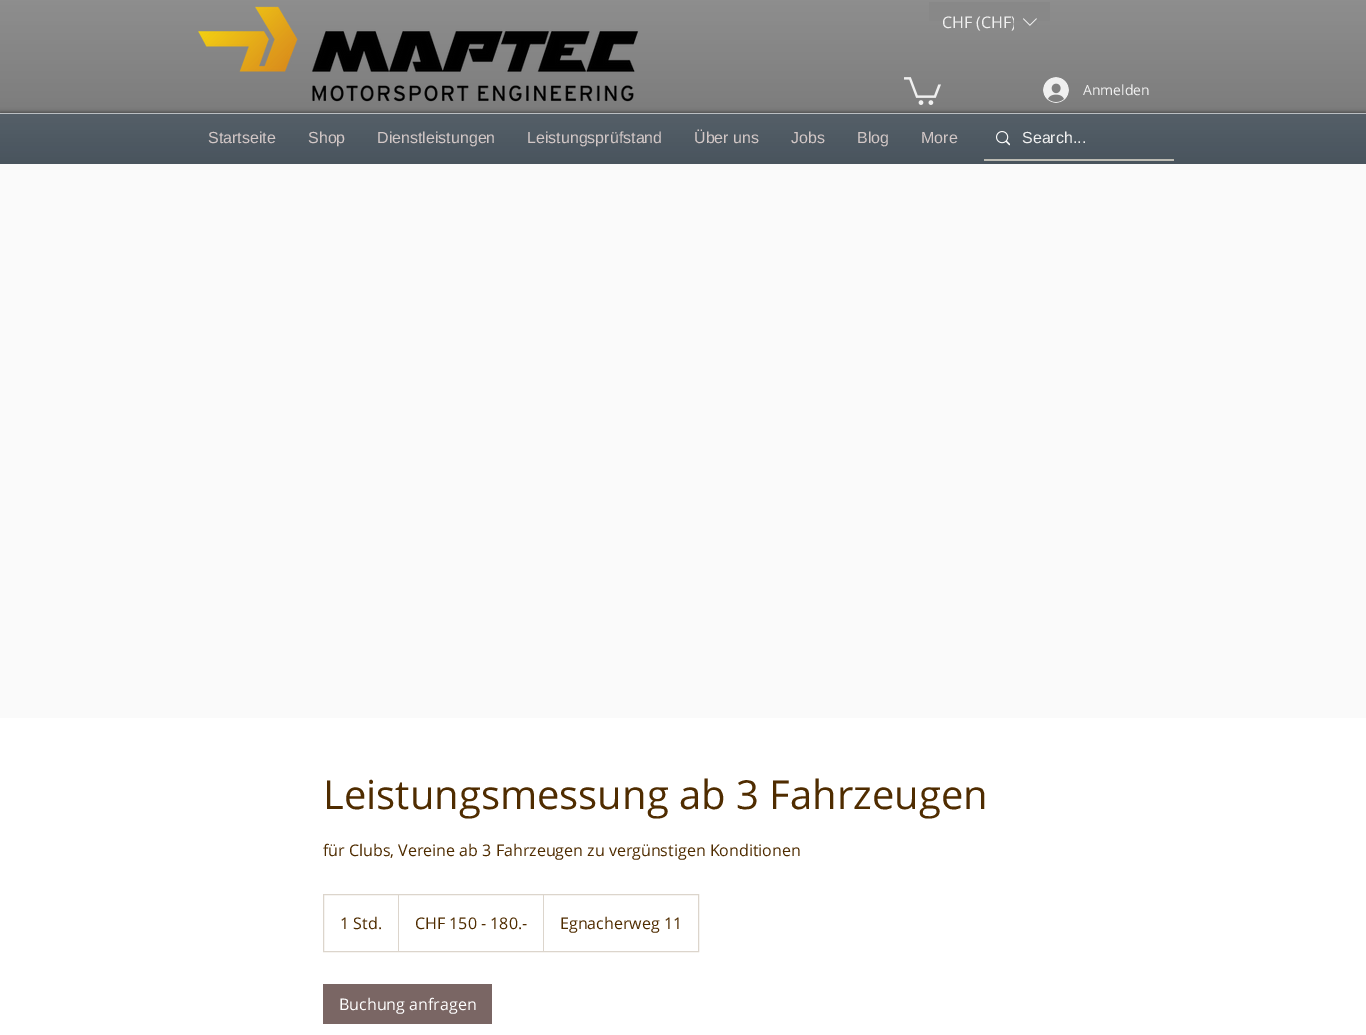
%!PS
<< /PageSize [1366 1035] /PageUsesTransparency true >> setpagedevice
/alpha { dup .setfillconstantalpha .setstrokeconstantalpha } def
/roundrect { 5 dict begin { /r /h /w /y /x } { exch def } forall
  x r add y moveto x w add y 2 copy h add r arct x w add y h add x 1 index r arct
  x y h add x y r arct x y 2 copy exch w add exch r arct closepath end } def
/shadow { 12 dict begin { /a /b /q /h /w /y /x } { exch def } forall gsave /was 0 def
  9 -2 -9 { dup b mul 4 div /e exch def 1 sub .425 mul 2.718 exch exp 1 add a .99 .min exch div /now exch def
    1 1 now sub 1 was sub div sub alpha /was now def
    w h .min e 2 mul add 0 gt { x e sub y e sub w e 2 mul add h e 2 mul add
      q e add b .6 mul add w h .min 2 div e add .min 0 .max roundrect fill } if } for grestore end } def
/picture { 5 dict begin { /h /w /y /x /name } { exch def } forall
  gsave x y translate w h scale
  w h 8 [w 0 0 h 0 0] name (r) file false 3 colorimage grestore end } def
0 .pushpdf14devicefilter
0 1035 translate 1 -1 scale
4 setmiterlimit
1 setgray
0 0 1366 1035 rectfill
0.4 setgray
0 0 1366 113 rectfill
(img1.rgb) 0 0 1366 113 picture
(img2.rgb) 198 6 441 96 picture
0.533 setgray
929 2 121 19 rectfill
gsave
942 11 72 22 rectclip
/OpenSans-Regular [16 0 0 -16 0 0] selectfont
0.941 setgray
942 28 moveto (CHF \(CHF\)) show
grestore
(img3.rgb) 1023 18 14 8 picture
(img4.rgb) 904 77 37 28 picture
(img5.rgb) 1043 77 26 26 picture
/OpenSans-Regular [14 0 0 -14 0 0] selectfont
0.941 setgray
1083 95 moveto (Anmelden) show
0 setgray
0 113 1366 118 0 2.5 0.6 shadow
0.098 0.153 0.2 setrgbcolor
0 114 1366 50 rectfill
(img6.rgb) 0 114 1366 50 picture
/LiberationSans-Regular [16 0 0 -16 0 0] selectfont
0.824 0.78 0.776 setrgbcolor
208 143 moveto (Startseite) show
308 143 moveto (Shop) show
377 143 moveto (Dienstleistungen) show
527 143 moveto (Leistungsprüfstand) show
694 143 moveto (Über uns) show
791 143 moveto (Jobs) show
857 143 moveto (Blog) show
921 143 moveto (More) show
0.733 0.749 0.765 setrgbcolor
0 113 1366 1 rectfill
0.737 0.733 0.702 setrgbcolor
984 159 190 2 rectfill
(img7.rgb) 996 131 14 15 picture
0.941 setgray
1022 143 moveto (Search...) show
0.98 setgray
0 164 1366 554 rectfill
/OpenSans-Regular [40 0 0 -40 0 0] selectfont
0.31 0.173 0 setrgbcolor
323 809 moveto (Leistungsmessung ab 3 Fahrzeugen) show
/OpenSans-Regular [16 0 0 -16 0 0] selectfont
323 856 moveto (für Clubs, Vereine ab 3 Fahrzeugen zu vergünstigen Konditionen) show
0.863 0.835 0.8 setrgbcolor
323.5 894.5 375 57 rectstroke
0.31 0.173 0 setrgbcolor
340 929 moveto (1 Std.) show
0.863 0.835 0.8 setrgbcolor
newpath 398 951 moveto 398 894 lineto 399 895 lineto 399 951 lineto closepath fill
0.31 0.173 0 setrgbcolor
415 929 moveto (CHF 150 - 180.-) show
0.863 0.835 0.8 setrgbcolor
newpath 543 951 moveto 543 894 lineto 544 895 lineto 544 951 lineto closepath fill
0.31 0.173 0 setrgbcolor
560 929 moveto (Egnacherweg 11) show
0.478 0.4 0.392 setrgbcolor
323 984 169 40 rectfill
1 setgray
339 1010 moveto (Buchung anfragen) show
.poppdf14devicefilter showpage
